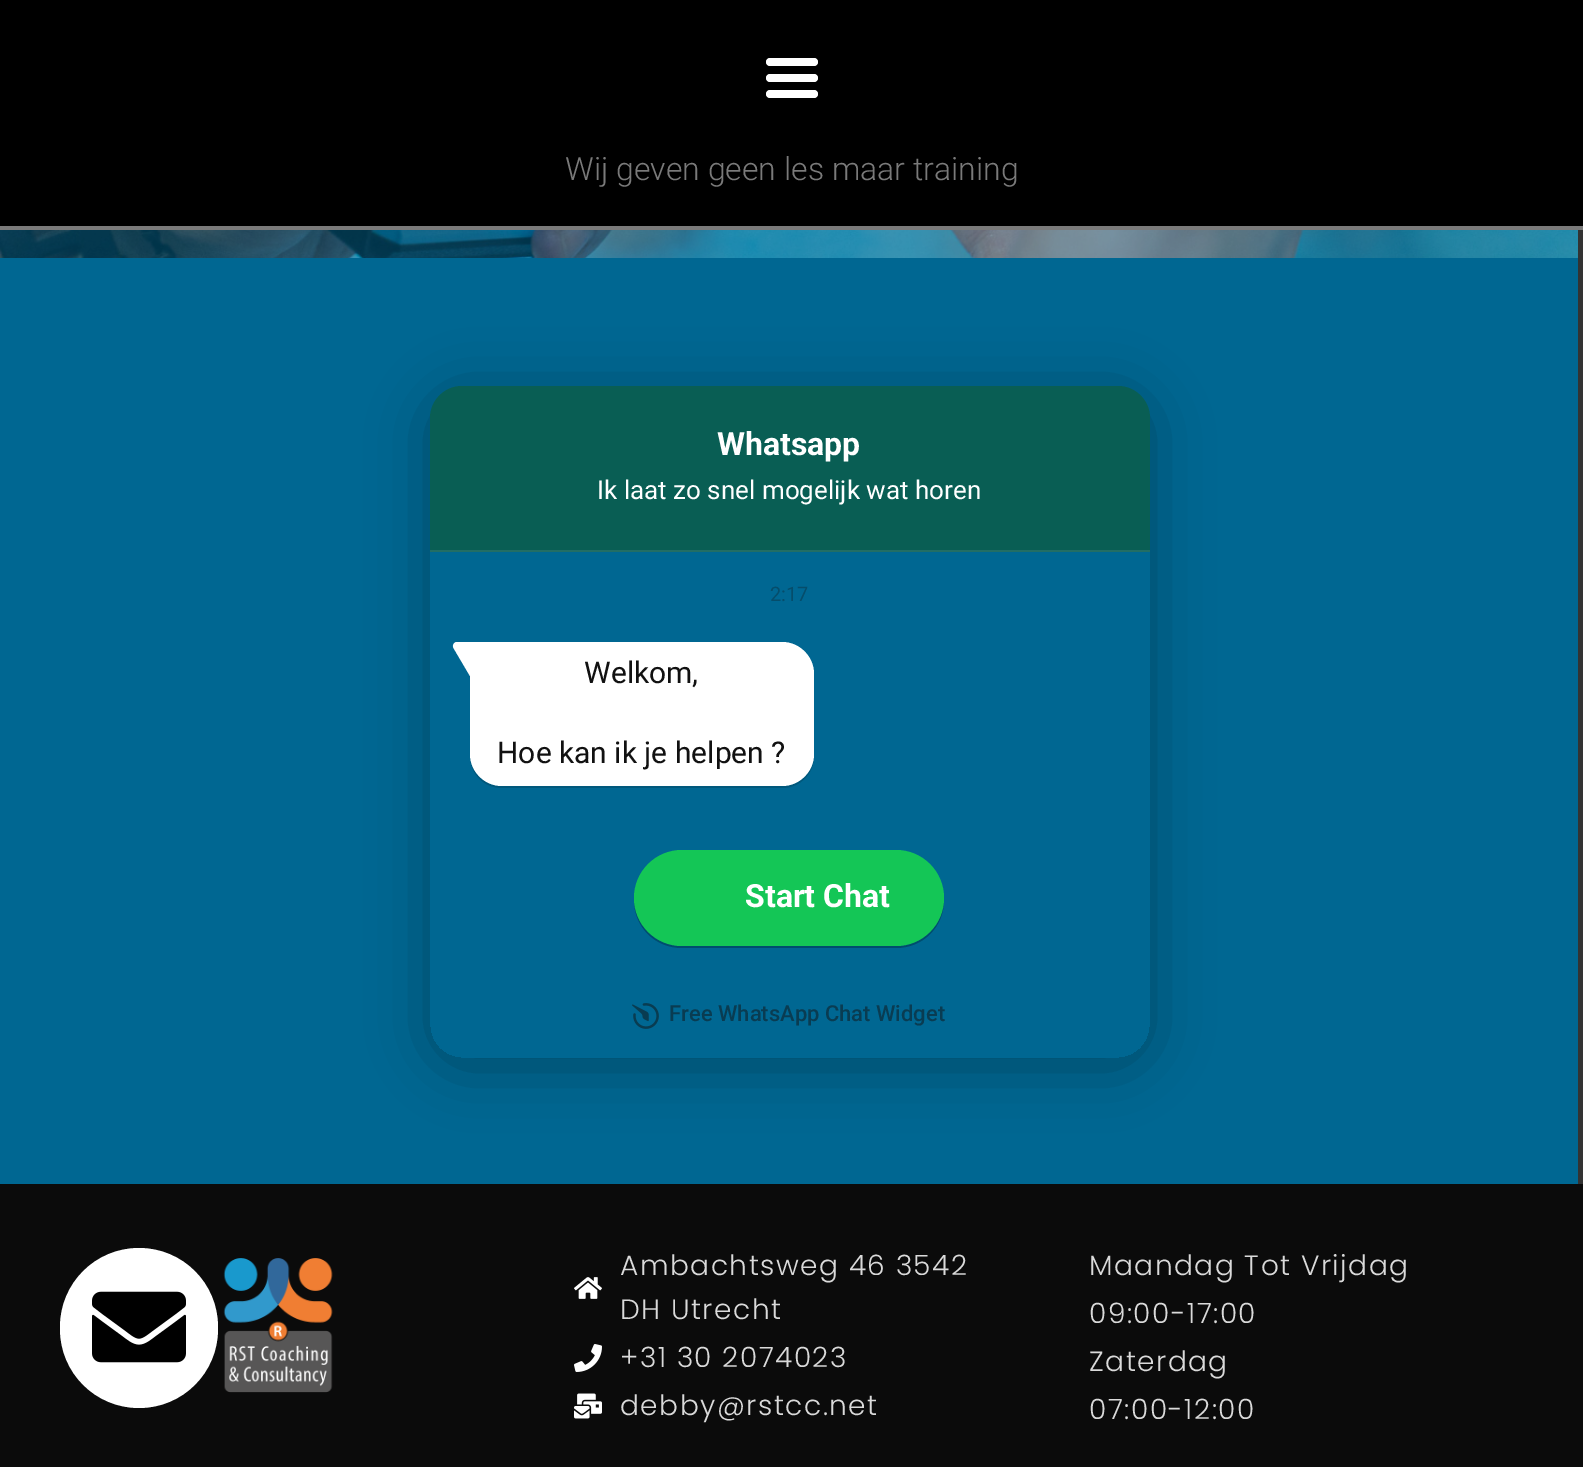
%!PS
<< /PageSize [1583 1467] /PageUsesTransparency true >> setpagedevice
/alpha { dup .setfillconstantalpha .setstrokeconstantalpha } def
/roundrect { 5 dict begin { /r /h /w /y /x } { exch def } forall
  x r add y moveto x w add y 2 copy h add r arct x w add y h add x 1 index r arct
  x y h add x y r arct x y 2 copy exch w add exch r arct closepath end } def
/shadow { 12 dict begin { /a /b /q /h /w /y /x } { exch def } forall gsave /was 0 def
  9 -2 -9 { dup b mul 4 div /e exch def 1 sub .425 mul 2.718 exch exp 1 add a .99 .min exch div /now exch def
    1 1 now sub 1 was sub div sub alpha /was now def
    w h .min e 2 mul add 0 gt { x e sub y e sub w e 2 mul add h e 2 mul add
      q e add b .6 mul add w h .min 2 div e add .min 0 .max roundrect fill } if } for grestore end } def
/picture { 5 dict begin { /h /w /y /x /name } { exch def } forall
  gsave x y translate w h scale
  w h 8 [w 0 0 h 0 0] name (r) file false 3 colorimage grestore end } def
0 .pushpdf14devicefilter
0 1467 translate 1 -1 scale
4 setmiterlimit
0.043 setgray
0 0 1583 1467 rectfill
0 setgray
0 0 1583 226 rectfill
0.478 setgray
0 226 1583 4 rectfill
1 setgray
766 74 52 8 4 roundrect fill
766 58 52 8 4 roundrect fill
766 90 52 8 4 roundrect fill
/Roboto-Light [32 0 0 -32 0 0] selectfont
0.478 setgray
565 180 moveto (Wij geven geen les maar training) show
0.2 setgray
1578 230 5 954 rectfill
(img1.rgb) 0 230 1578 28 picture
1 setgray
60 1248 158 160 79 roundrect fill
(img2.rgb) 92 1291 94 72 picture
0 0.404 0.573 setrgbcolor
0 258 1578 926 rectfill
gsave
newpath 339 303 moveto 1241 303 lineto 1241 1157 lineto 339 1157 lineto closepath 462 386 moveto 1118 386 lineto 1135.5 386 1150 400.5 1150 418 curveto 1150 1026 lineto 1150 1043.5 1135.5 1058 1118 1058 curveto 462 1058 lineto 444.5 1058 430 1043.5 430 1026 curveto 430 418 lineto 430 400.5 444.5 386 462 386 curveto closepath eoclip newpath
0 setgray
430 394 720 672 32 30 0.3 shadow
grestore
0.035 0.369 0.329 setrgbcolor
newpath 462 386 moveto 1118 386 lineto 1135.5 386 1150 400.5 1150 418 curveto 1150 552 lineto 430 552 lineto 430 418 lineto 430 400.5 444.5 386 462 386 curveto closepath fill
0.133 0.431 0.396 setrgbcolor
430 550 720 2 rectfill
/Roboto-Bold [32 0 0 -32 0 0] selectfont
1 setgray
717 455 moveto (Whatsapp) show
/Roboto-Regular [26 0 0 -26 0 0] selectfont
597 499 moveto (Ik laat zo snel mogelijk wat horen) show
/Roboto-Regular [20 0 0 -20 0 0] selectfont
0.02 0.302 0.42 setrgbcolor
770 601 moveto (2:17) show
0 0.345 0.486 setrgbcolor
newpath 470 754 moveto 470 756 lineto 470 774 484 788 502 788 curveto 782 788 lineto 800 788 814 774 814 756 curveto 814 754 lineto 814 772 800 786 782 786 curveto 502 786 lineto 484 786 470 772 470 754 curveto closepath fill
1 setgray
newpath 470 642 moveto 782 642 lineto 799.5 642 814 656.5 814 674 curveto 814 754 lineto 814 771.5 799.5 786 782 786 curveto 502 786 lineto 484.5 786 470 771.5 470 754 curveto closepath fill
newpath 453.5 648 moveto 452 645.5 454 642 457 642 curveto 470 642 lineto 470 676 lineto closepath fill
/Roboto-Regular [30 0 0 -30 0 0] selectfont
0.067 setgray
584 683 moveto (Welkom,) show
497 763 moveto (Hoe kan ik je helpen ?) show
0 0.302 0.431 setrgbcolor
newpath 634 899 moveto 634 900 lineto 634 927 655 948 682 948 curveto 896 948 lineto 923 948 944 927 944 900 curveto 944 899 lineto 943 925 922 946 896 946 curveto 682 946 lineto 656 946 635 925 634 899 curveto closepath fill
0.078 0.776 0.337 setrgbcolor
634 850 310 96 48 roundrect fill
/Roboto-Bold [32 0 0 -32 0 0] selectfont
1 setgray
745 907 moveto (Start Chat) show
(img3.rgb) 632 1003 27 26 picture
/Roboto-Medium [22 0 0 -22 0 0] selectfont
0.035 0.235 0.322 setrgbcolor
669 1021 moveto (Free WhatsApp Chat Widget) show
(img4.rgb) 223 1258 110 135 picture
(img5.rgb) 574 1277 28 22 picture
/Poppins-Light [28 0 0 -28 0 0] selectfont
0.855 setgray
620 1275 moveto 1.5 0 (Ambachtsweg 46 3542) ashow
620 1319 moveto 1.5 0 (DH Utrecht) ashow
(img6.rgb) 574 1344 28 28 picture
620 1367 moveto 1.5 0 (+31 30 2074023) ashow
(img7.rgb) 574 1393 28 26 picture
620 1415 moveto 1.5 0 (debby@rstcc.net) ashow
1089 1275 moveto 1.5 0 (Maandag Tot Vrijdag) ashow
1089 1323 moveto 1.5 0 (09:00-17:00) ashow
1089 1371 moveto 1.5 0 (Zaterdag) ashow
1089 1419 moveto 1.5 0 (07:00-12:00) ashow
.poppdf14devicefilter showpage
